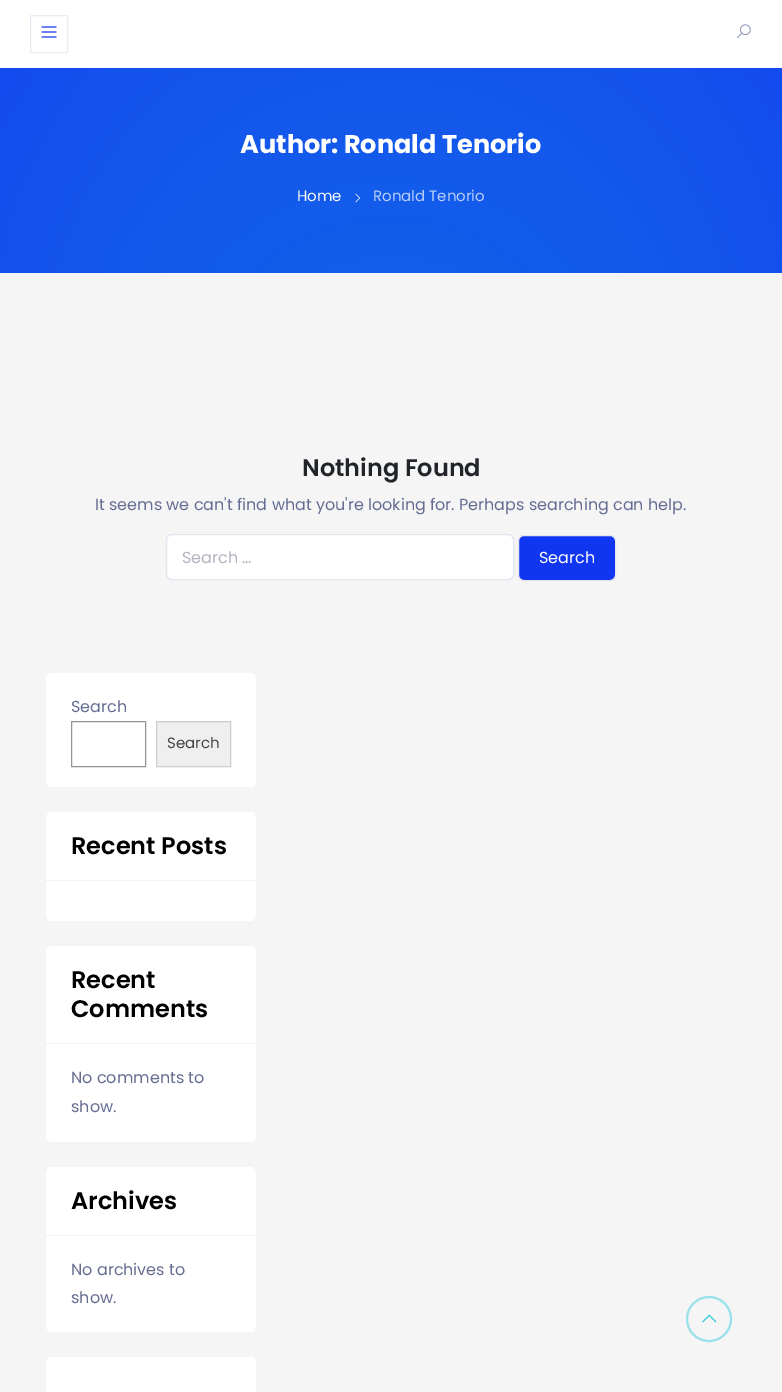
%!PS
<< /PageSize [782 1392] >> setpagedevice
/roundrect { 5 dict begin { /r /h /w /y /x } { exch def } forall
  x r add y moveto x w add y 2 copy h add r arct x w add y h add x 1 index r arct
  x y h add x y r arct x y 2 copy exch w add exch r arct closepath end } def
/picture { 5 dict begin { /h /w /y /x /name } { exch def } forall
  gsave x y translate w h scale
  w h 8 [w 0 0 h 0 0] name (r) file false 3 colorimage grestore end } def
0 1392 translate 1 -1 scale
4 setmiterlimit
0.961 0.961 0.965 setrgbcolor
0 0 782 1392 rectfill
1 setgray
0 0 782 68 rectfill
0.914 0.922 0.957 setrgbcolor
30.5 15.5 37 37 1.5 roundrect stroke
(img1.rgb) 41 26 16 12 picture
(img2.rgb) 736 24 15 15 picture
(img3.rgb) 0 68 782 205 picture
/Poppins-Bold [25.6 0 0 -25.6 0 0] selectfont
1 setgray
240 153 moveto (Author: Ronald Tenorio) show
/Poppins-Regular [15 0 0 -15 0 0] selectfont
0.973 0.976 0.984 setrgbcolor
297 201 moveto (Home) show
(img4.rgb) 355 193 6 10 picture
0.722 0.808 0.976 setrgbcolor
373 201 moveto (Ronald Tenorio) show
/Poppins-SemiBold [24 0 0 -24 0 0] selectfont
0.129 0.145 0.161 setrgbcolor
302 476 moveto (Nothing Found) show
/Poppins-Regular [16 0 0 -16 0 0] selectfont
0.4 0.427 0.573 setrgbcolor
95 510 moveto (It seems we can't find what you're looking for. Perhaps searching can help.) show
1 setgray
166.5 534.5 347 45 5.5 roundrect gsave fill grestore
0.89 0.902 0.937 setrgbcolor
stroke
0.698 0.702 0.749 setrgbcolor
182 563 moveto (Search …) show
0.067 0.212 0.945 setrgbcolor
518.5 535.5 97 45 5.5 roundrect gsave fill grestore
0.89 0.902 0.937 setrgbcolor
stroke
1 setgray
539 563 moveto (Search) show
46 673 210 114 6 roundrect fill
0.4 0.427 0.573 setrgbcolor
71 712 moveto (Search) show
0.58 setgray
71.5 721.5 74 45 rectstroke
0.937 setgray
newpath 156.5 721.5 moveto 230.5 721.5 lineto 230.5 766.5 lineto 156.5 766.5 lineto closepath gsave fill grestore
0.8 setgray
stroke
/Poppins-Regular [15 0 0 -15 0 0] selectfont
0.267 setgray
167 748 moveto (Search) show
1 setgray
46 812 210 109 6 roundrect fill
0.949 setgray
46 880 210 1 rectfill
/Poppins-SemiBold [24 0 0 -24 0 0] selectfont
0 setgray
71 854 moveto (Recent Posts) show
1 setgray
46 946 210 196 6 roundrect fill
0.949 setgray
46 1043 210 1 rectfill
0 setgray
71 988 moveto (Recent) show
71 1017 moveto (Comments) show
/Poppins-Regular [16 0 0 -16 0 0] selectfont
0.4 0.427 0.573 setrgbcolor
71 1083 moveto (No comments to) show
71 1112 moveto (show.) show
1 setgray
46 1167 210 165 6 roundrect fill
0.949 setgray
46 1235 210 1 rectfill
/Poppins-SemiBold [24 0 0 -24 0 0] selectfont
0 setgray
71 1209 moveto (Archives) show
/Poppins-Regular [16 0 0 -16 0 0] selectfont
0.4 0.427 0.573 setrgbcolor
71 1275 moveto (No archives to) show
71 1303 moveto (show.) show
1 setgray
46 1357 210 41 6 roundrect fill
0.608 0.882 0.918 setrgbcolor
2 setlinewidth
newpath 709 1319 22 0 360 arc closepath stroke
(img5.rgb) 702 1314 15 9 picture
showpage
